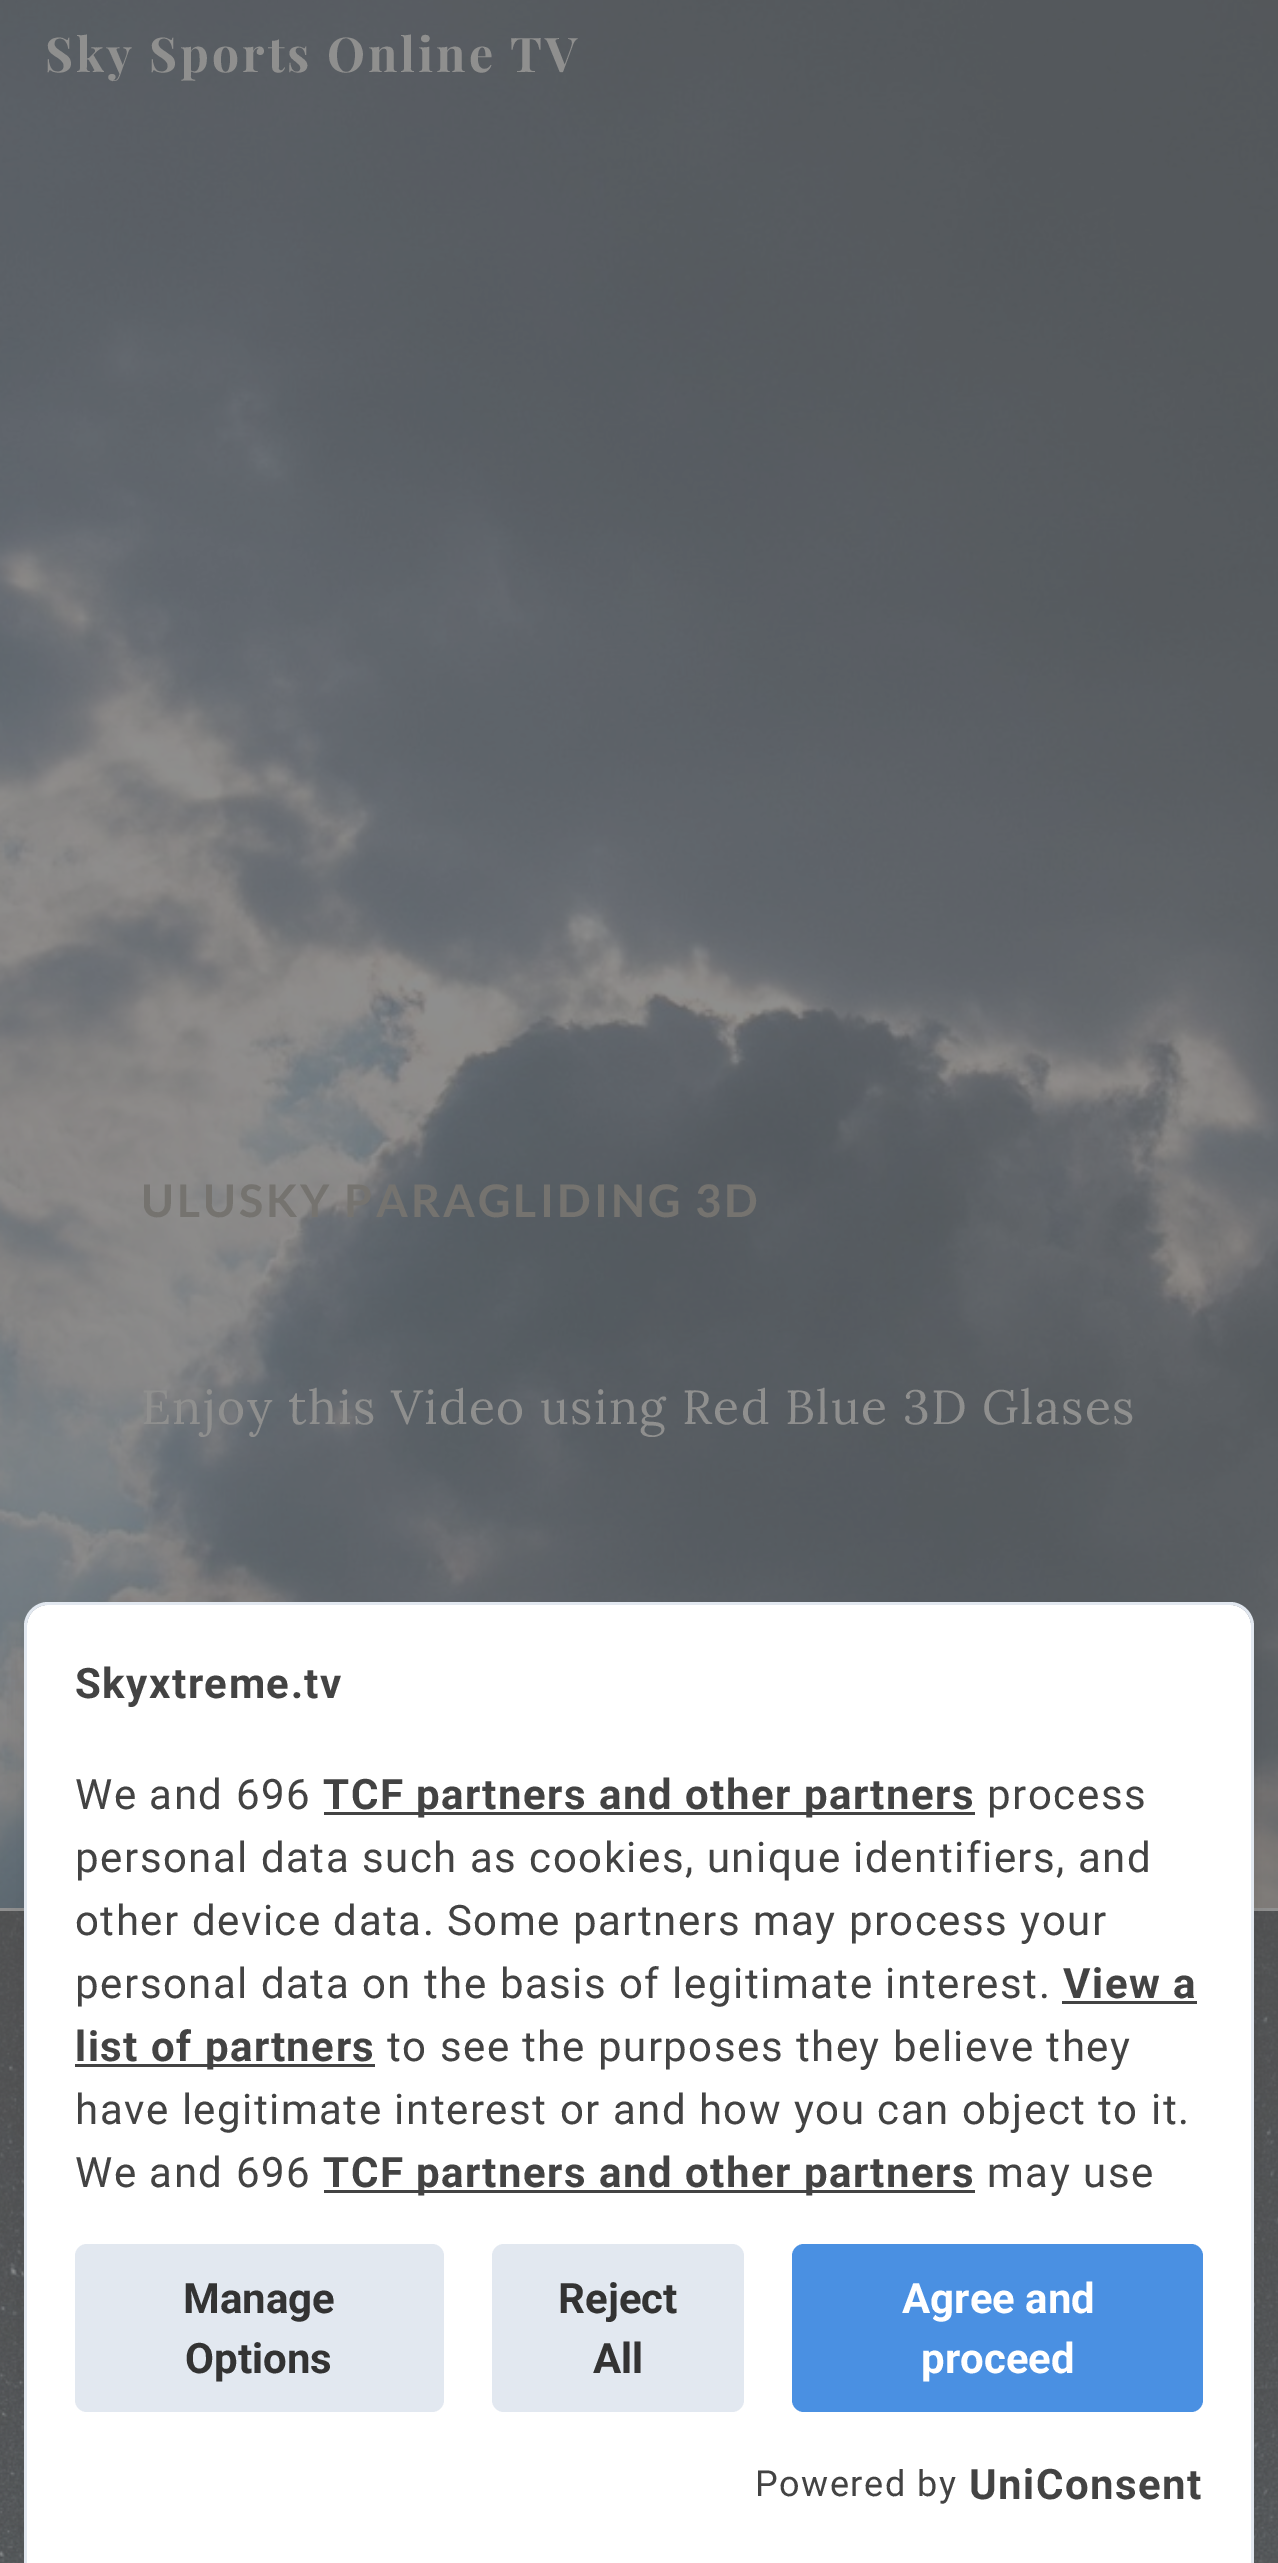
%!PS
<< /PageSize [1278 2563] /PageUsesTransparency true >> setpagedevice
/alpha { dup .setfillconstantalpha .setstrokeconstantalpha } def
/roundrect { 5 dict begin { /r /h /w /y /x } { exch def } forall
  x r add y moveto x w add y 2 copy h add r arct x w add y h add x 1 index r arct
  x y h add x y r arct x y 2 copy exch w add exch r arct closepath end } def
/shadow { 12 dict begin { /a /b /q /h /w /y /x } { exch def } forall gsave /was 0 def
  9 -2 -9 { dup b mul 4 div /e exch def 1 sub .425 mul 2.718 exch exp 1 add a .99 .min exch div /now exch def
    1 1 now sub 1 was sub div sub alpha /was now def
    w h .min e 2 mul add 0 gt { x e sub y e sub w e 2 mul add h e 2 mul add
      q e add b .6 mul add w h .min 2 div e add .min 0 .max roundrect fill } if } for grestore end } def
/picture { 5 dict begin { /h /w /y /x /name } { exch def } forall
  gsave x y translate w h scale
  w h 8 [w 0 0 h 0 0] name (r) file false 3 colorimage grestore end } def
0 .pushpdf14devicefilter
0 2563 translate 1 -1 scale
4 setmiterlimit
1 setgray
0 0 1278 2563 rectfill
(img1.rgb) 0 0 1278 1908 picture
/PlayfairDisplay-Bold [48 0 0 -48 0 0] selectfont
0.561 0.561 0.557 setrgbcolor
45 72 moveto 3 0 (Sky Sports Online TV) ashow
/Lato-Bold [45 0 0 -45 0 0] selectfont
0.459 0.451 0.435 setrgbcolor
141 1217 moveto 3 0 (ULUSKY PARAGLIDING 3D) ashow
/Lora-Regular [48 0 0 -48 0 0] selectfont
0.561 0.561 0.557 setrgbcolor
141 1424 moveto 1.5 0 (Enjoy this Video using Red Blue 3D Glases) ashow
(img2.rgb) 0 1911 1278 652 picture
0.561 setgray
0 1908 1278 3 rectfill
0 setgray
27 1617 1224 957 21 9 0.1 shadow
1 setgray
newpath 48 1605 moveto 1230 1605 lineto 1241.5 1605 1251 1614.5 1251 1626 curveto 1251 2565 lineto 27 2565 lineto 27 1626 lineto 27 1614.5 36.5 1605 48 1605 curveto closepath fill
0.886 0.91 0.941 setrgbcolor
newpath 48 1602 moveto 1230 1602 lineto 1243 1602 1254 1613 1254 1626 curveto 1254 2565 lineto 24 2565 lineto 24 1626 lineto 24 1613 35 1602 48 1602 curveto closepath 48 1605 moveto 1230 1605 lineto 1242 1605 1251 1614 1251 1626 curveto 1251 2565 lineto 27 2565 lineto 27 1626 lineto 27 1614 36 1605 48 1605 curveto closepath eofill
/Roboto-Bold [42 0 0 -42 0 0] selectfont
0.263 setgray
75 1698 moveto 1.5 0 (Skyxtreme.tv) ashow
/Roboto-Regular [42 0 0 -42 0 0] selectfont
75 1809 moveto 1.5 0 (We and 696) ashow
324 1812 651 3 rectfill
/Roboto-Bold [42 0 0 -42 0 0] selectfont
323 1809 moveto 1.5 0 (TCF partners and other partners) ashow
/Roboto-Regular [42 0 0 -42 0 0] selectfont
987 1809 moveto 1.5 0 (process) ashow
75 1872 moveto 1.5 0 (personal data such as cookies, unique identifiers, and) ashow
75 1935 moveto 1.5 0 (other device data. Some partners may process your) ashow
75 1998 moveto 1.5 0 (personal data on the basis of legitimate interest.) ashow
/Roboto-Bold [42 0 0 -42 0 0] selectfont
1063 1998 moveto 1.5 0 (View a) ashow
1062 2001 135 3 rectfill
75 2064 300 3 rectfill
75 2061 moveto 1.5 0 (list of partners) ashow
/Roboto-Regular [42 0 0 -42 0 0] selectfont
387 2061 moveto 1.5 0 (to see the purposes they believe they) ashow
75 2124 moveto 1.5 0 (have legitimate interest or and how you can object to it.) ashow
75 2187 moveto 1.5 0 (We and 696) ashow
324 2190 651 3 rectfill
/Roboto-Bold [42 0 0 -42 0 0] selectfont
323 2187 moveto 1.5 0 (TCF partners and other partners) ashow
/Roboto-Regular [42 0 0 -42 0 0] selectfont
987 2187 moveto 1.5 0 (may use) ashow
0.886 0.91 0.941 setrgbcolor
75 2244 369 168 12 roundrect fill
/Roboto-Bold [42 0 0 -42 0 0] selectfont
0.2 setgray
183 2313 moveto (Manage) show
185 2373 moveto (Options) show
0.886 0.91 0.941 setrgbcolor
492 2244 252 168 12 roundrect fill
0.2 setgray
558 2313 moveto (Reject) show
593 2373 moveto (All) show
0.29 0.565 0.886 setrgbcolor
792 2244 411 168 12 roundrect fill
1 setgray
902 2313 moveto (Agree and) show
921 2373 moveto (proceed) show
/Roboto-Regular [36 0 0 -36 0 0] selectfont
0.263 setgray
755 2496 moveto 1.5 0 (Powered by) ashow
/Roboto-Bold [42 0 0 -42 0 0] selectfont
969 2499 moveto 1.5 0 (UniConsent) ashow
.poppdf14devicefilter showpage
